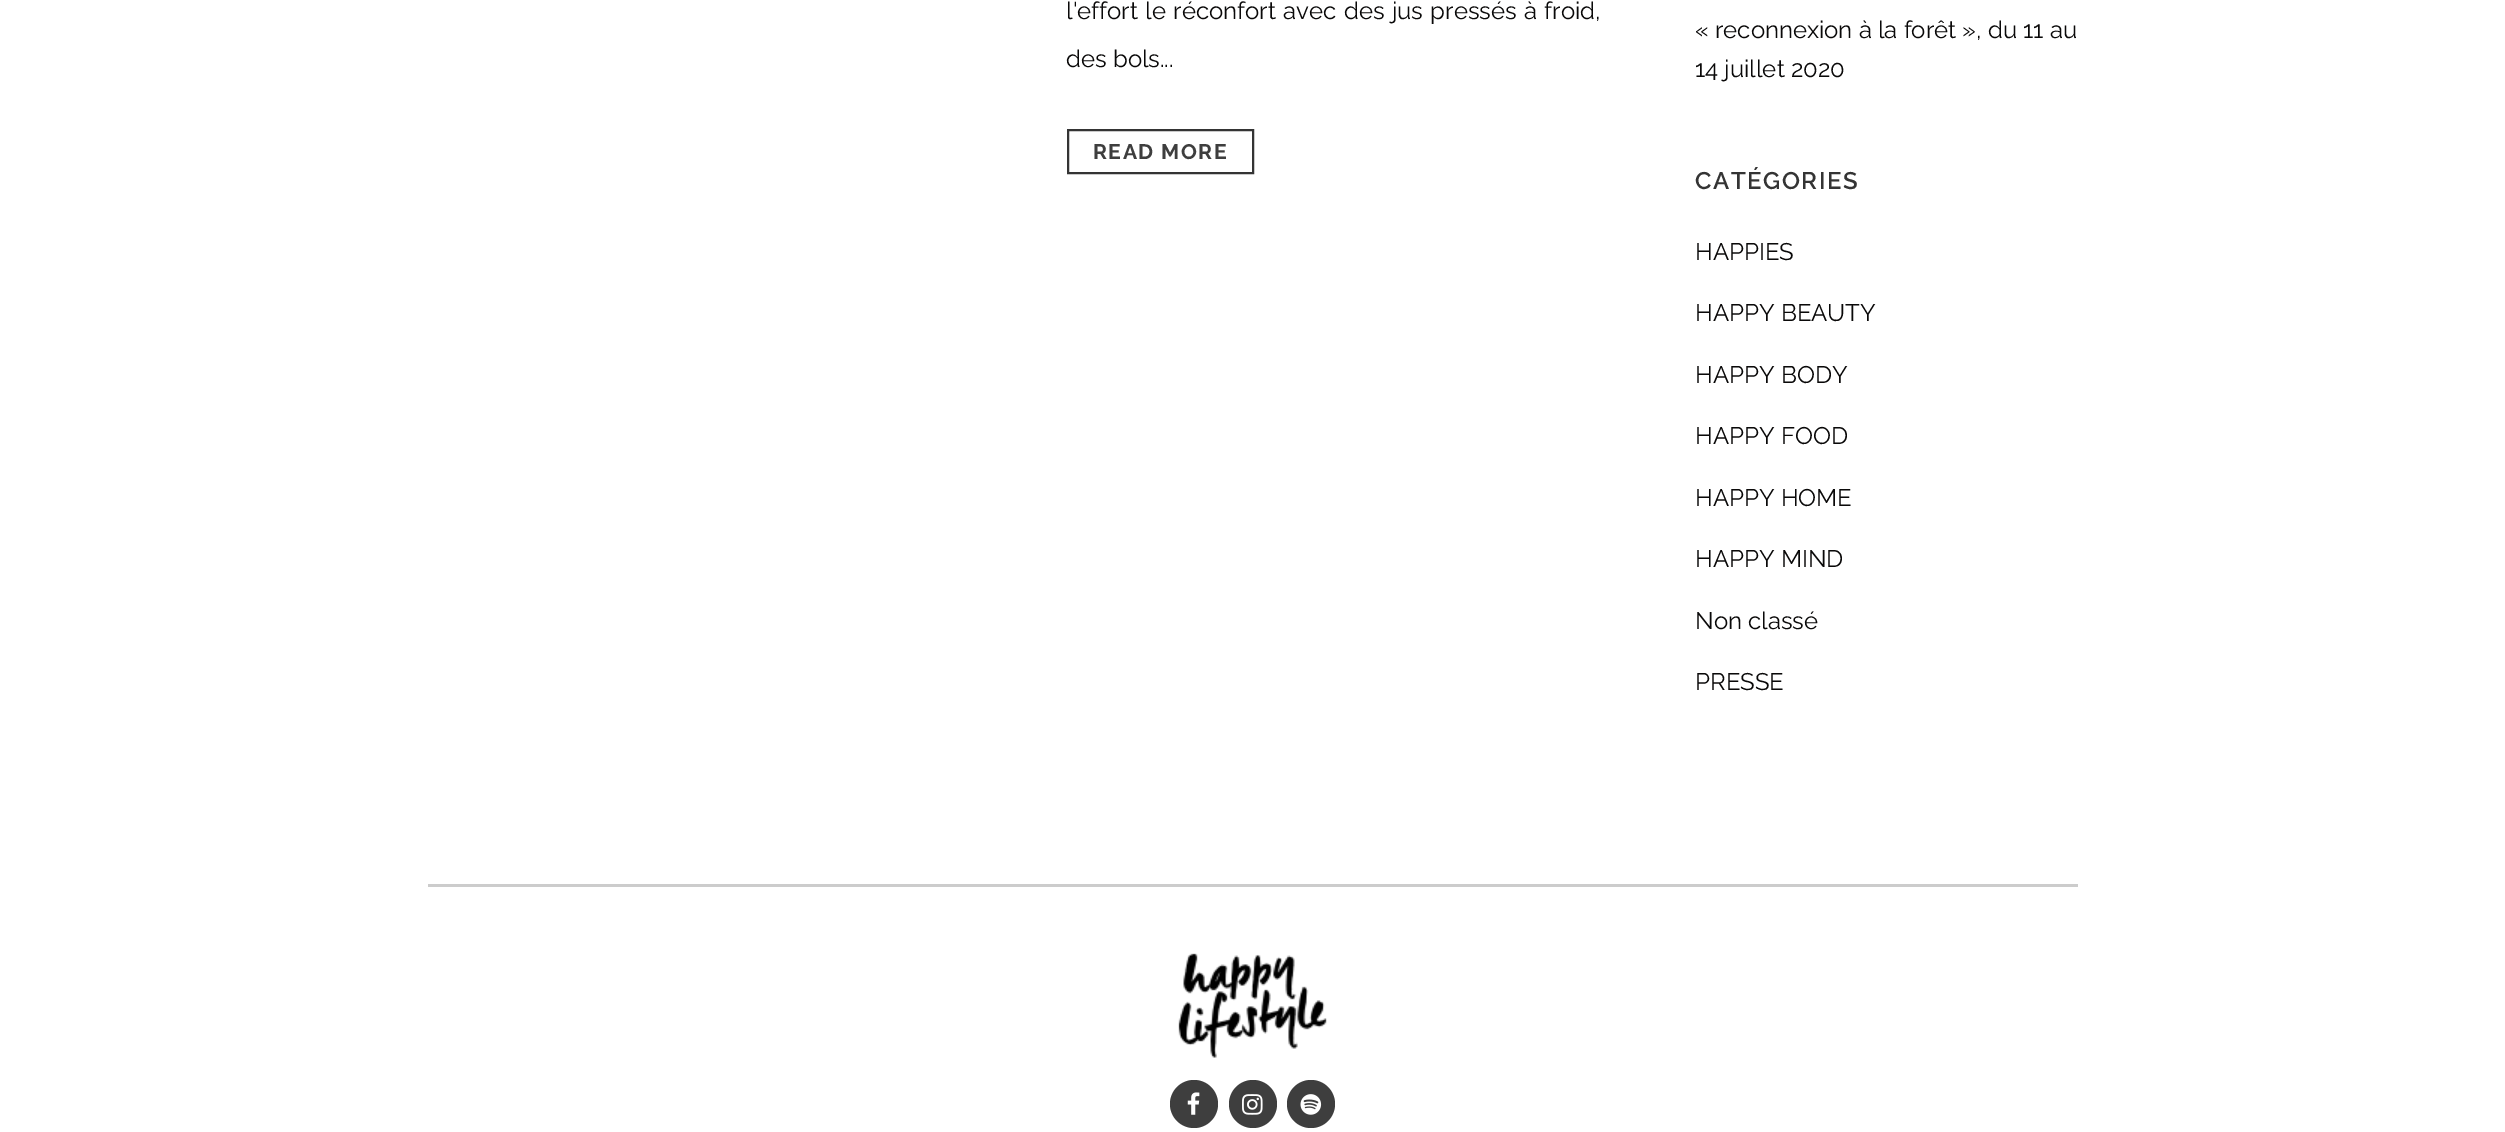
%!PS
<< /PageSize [2505 1132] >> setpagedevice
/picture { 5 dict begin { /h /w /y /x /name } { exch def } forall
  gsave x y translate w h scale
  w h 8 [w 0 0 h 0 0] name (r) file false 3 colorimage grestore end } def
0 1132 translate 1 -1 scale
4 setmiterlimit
1 setgray
0 0 2505 1132 rectfill
/Raleway-Regular [24 0 0 -24 0 0] selectfont
0.039 0.035 0.035 setrgbcolor
1066 19 moveto 1.25 0 32 (l'effort le réconfort avec des jus pressés à froid,) widthshow
1066 67 moveto (des bols...) show
0.204 setgray
2 setlinewidth
1068 130 185 43 rectstroke
/Raleway-Bold [21 0 0 -21 0 0] selectfont
0.243 setgray
1093 159 moveto 1.5 0 (READ MORE) ashow
/Raleway-Regular [24 0 0 -24 0 0] selectfont
0.039 0.035 0.035 setrgbcolor
1695 38 moveto (« reconnexion à la forêt », du 11 au) show
1695 77 moveto (14 juillet 2020) show
/Raleway-SemiBold [24 0 0 -24 0 0] selectfont
0.204 setgray
1695 189 moveto 1.5 0 (CATÉGORIES) ashow
/Raleway-Regular [24 0 0 -24 0 0] selectfont
0.039 0.035 0.035 setrgbcolor
1695 260 moveto (HAPPIES) show
1695 321 moveto (HAPPY BEAUTY) show
1695 383 moveto (HAPPY BODY) show
1695 444 moveto (HAPPY FOOD) show
1695 506 moveto (HAPPY HOME) show
1695 567 moveto (HAPPY MIND) show
1695 629 moveto (Non classé) show
1695 690 moveto (PRESSE) show
0.8 setgray
428 884 1650 3 rectfill
(img1.rgb) 1178 953 149 105 picture
0.243 setgray
newpath 1194 1104 24 0 360 arc closepath fill
(img2.rgb) 1187 1092 13 23 picture
newpath 1253 1104 24 0 360 arc closepath fill
(img3.rgb) 1242 1094 21 21 picture
newpath 1311 1104 24 0 360 arc closepath fill
(img4.rgb) 1300 1094 22 21 picture
showpage
